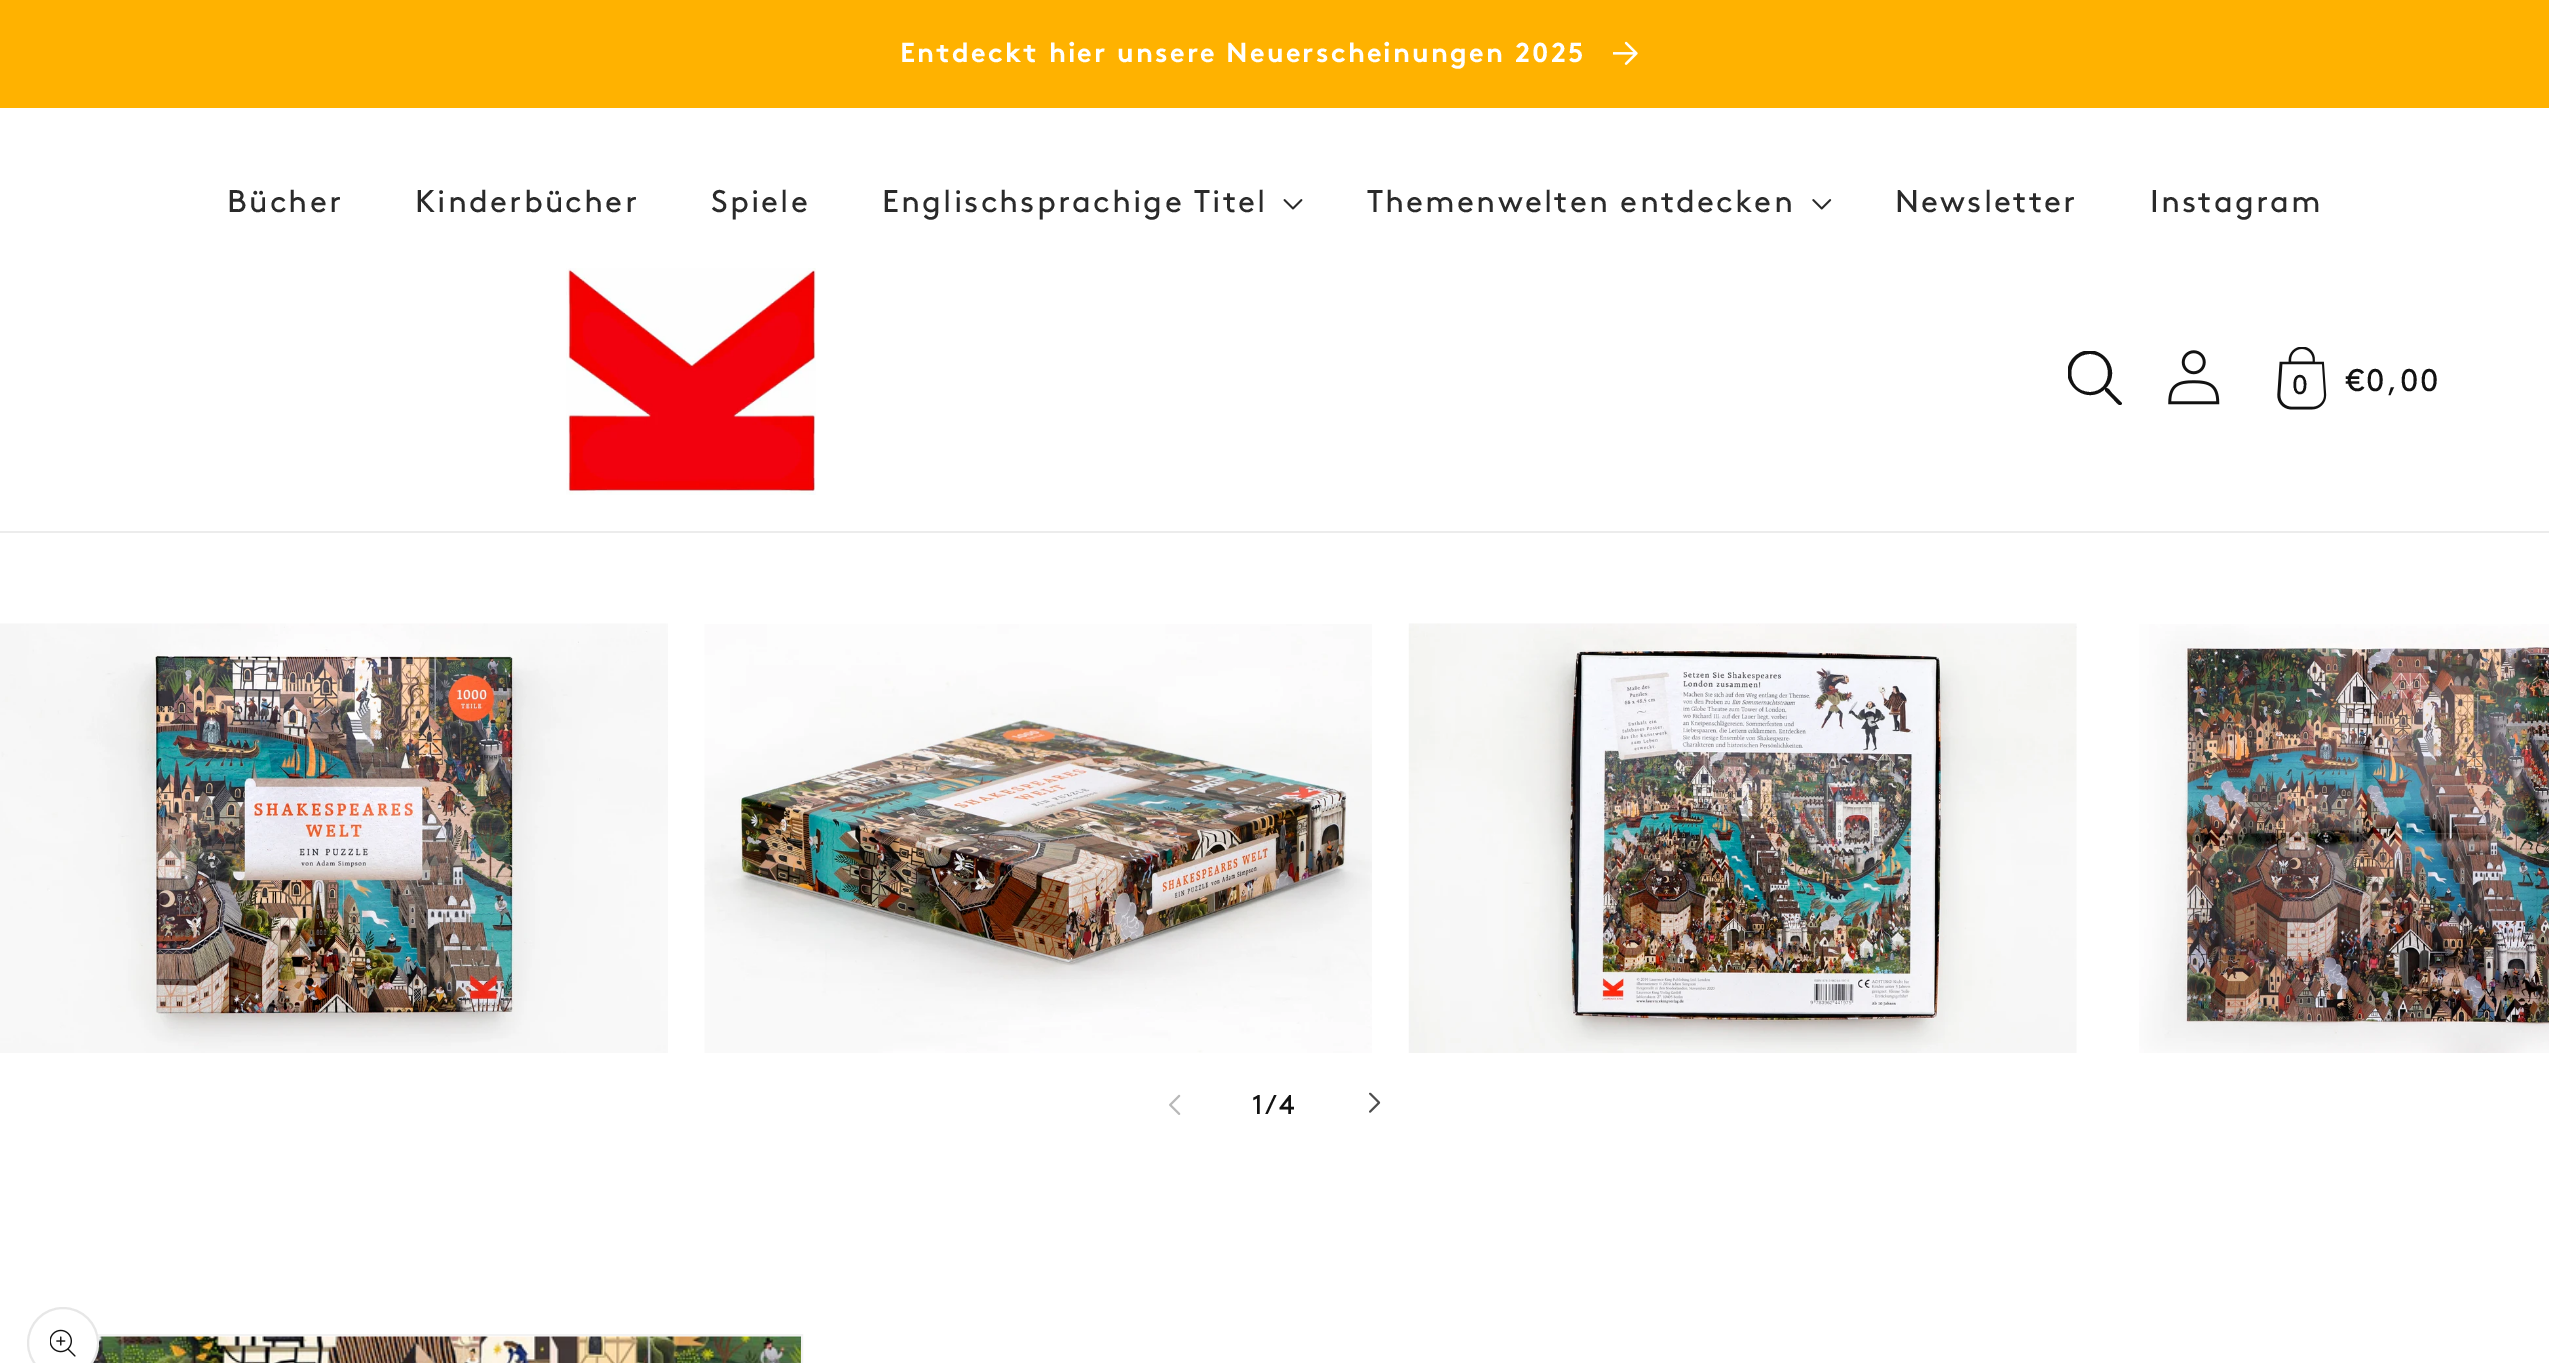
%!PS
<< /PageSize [2549 1363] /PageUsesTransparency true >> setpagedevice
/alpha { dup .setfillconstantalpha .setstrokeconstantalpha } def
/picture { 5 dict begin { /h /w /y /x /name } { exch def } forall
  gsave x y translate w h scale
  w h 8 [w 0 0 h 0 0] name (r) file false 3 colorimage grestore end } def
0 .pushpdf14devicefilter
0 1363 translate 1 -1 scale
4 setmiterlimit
1 setgray
0 0 2549 1363 rectfill
1 0.698 0 setrgbcolor
0 0 2549 108 rectfill
/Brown-Bold [27.4 0 0 -27.4 0 0] selectfont
1 setgray
900 62 moveto 2.15 0 (Entdeckt hier unsere Neuerscheinungen 2025) ashow
(img1.rgb) 1613 41 25 24 picture
0.925 setgray
0 531 2549 2 rectfill
/Brown-Regular [31.25 0 0 -31.25 0 0] selectfont
0.165 setgray
227 212 moveto 2.15 0 (Bücher) ashow
415 212 moveto 2.15 0 (Kinderbücher) ashow
711 212 moveto 2.15 0 (Spiele) ashow
882 212 moveto 2.15 0 (Englischsprachige Titel) ashow
(img2.rgb) 1283 199 20 11 picture
1367 212 moveto 2.15 0 (Themenwelten entdecken) ashow
(img3.rgb) 1812 199 20 11 picture
1895 212 moveto 2.15 0 (Newsletter) ashow
2150 212 moveto 2.15 0 (Instagram) ashow
(img4.rgb) 566 268 250 227 picture
gsave
2068 351 54 54 rectclip
0.071 setgray
newpath 2121 402 moveto 2112 393 lineto 2110 391 2109 388 2106 388 curveto 2125 367 2095 337 2074 357 curveto 2054 378 2084 408 2105 389 curveto 2105 391 2105 391 2107 393 curveto 2114 400 lineto 2115 401 2121 409 2122 403 curveto closepath 2090 392 moveto 2065 392 2065 354 2090 354 curveto 2114 354 2114 392 2090 392 curveto closepath fill
grestore
(img5.rgb) 2168 350 52 55 picture
(img6.rgb) 2277 347 50 63 picture
/Brown-Regular [27 0 0 -27 0 0] selectfont
0.071 setgray
2292 394 moveto 2.15 0 (0) ashow
/Brown-Regular [31.25 0 0 -31.25 0 0] selectfont
2346 391 moveto 2.15 0 (€0,00) ashow
(img7.rgb) 0 623 668 430 picture
(img8.rgb) 704 624 668 429 picture
(img9.rgb) 1408 623 669 430 picture
(img10.rgb) 2139 624 410 429 picture
(img11.rgb) 1169 1094 12 21 picture
/Brown-Regular [27 0 0 -27 0 0] selectfont
1252 1114 moveto 2.15 0 (1/4) ashow
(img12.rgb) 1369 1092 12 21 picture
0.953 setgray
2 setlinewidth
55 1335 747 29 rectstroke
(img14.rgb) 93 1336 708 27 picture
1 setgray
newpath 63 1343 36 0 360 arc closepath fill
0.1 alpha
0.071 setgray
newpath 63 1343 35 0 360 arc closepath stroke
1 alpha
(img13.rgb) 50 1329 26 28 picture
.poppdf14devicefilter showpage
